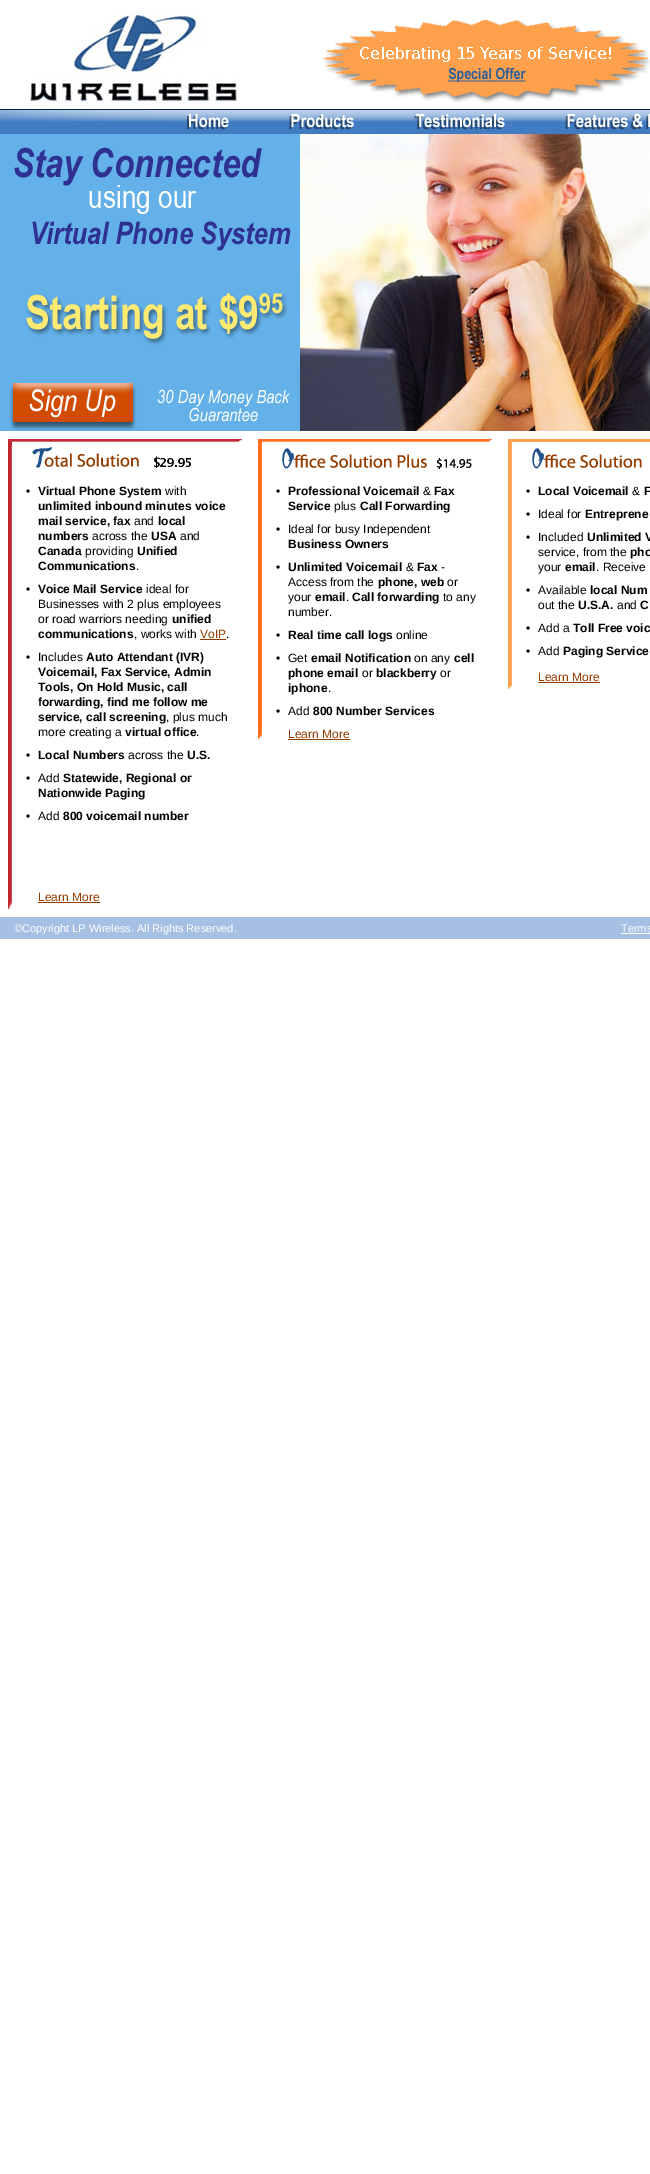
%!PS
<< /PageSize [650 2174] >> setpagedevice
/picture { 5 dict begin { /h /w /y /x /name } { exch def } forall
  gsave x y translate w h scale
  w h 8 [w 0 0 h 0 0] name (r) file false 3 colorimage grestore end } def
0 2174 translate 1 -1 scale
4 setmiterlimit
1 setgray
0 0 650 2174 rectfill
(img1.rgb) 0 13 242 97 picture
0.012 0.137 0.282 setrgbcolor
242 109 59 1 rectfill
(img2.rgb) 301 20 349 90 picture
(img3.rgb) 0 110 173 24 picture
(img4.rgb) 173 110 104 24 picture
(img5.rgb) 277 110 131 24 picture
(img6.rgb) 408 110 148 24 picture
(img7.rgb) 556 110 94 24 picture
(img8.rgb) 0 134 300 297 picture
(img9.rgb) 300 134 350 297 picture
(img10.rgb) 8 439 4 470 picture
(img11.rgb) 12 439 230 3 picture
(img12.rgb) 32 447 159 22 picture
/LiberationSans-Regular [12 0 0 -12 0 0] selectfont
0 setgray
26 495 moveto (•) show
/LiberationSans-Bold [12 0 0 -12 0 0] selectfont
38 495 moveto (Virtual Phone System) show
/LiberationSans-Regular [12 0 0 -12 0 0] selectfont
165 495 moveto (with) show
/LiberationSans-Bold [12 0 0 -12 0 0] selectfont
38 510 moveto (unlimited inbound minutes voice) show
38 525 moveto (mail service, fax) show
/LiberationSans-Regular [12 0 0 -12 0 0] selectfont
134 525 moveto (and) show
/LiberationSans-Bold [12 0 0 -12 0 0] selectfont
158 525 moveto (local) show
38 540 moveto (numbers) show
/LiberationSans-Regular [12 0 0 -12 0 0] selectfont
92 540 moveto (across the) show
/LiberationSans-Bold [12 0 0 -12 0 0] selectfont
151 540 moveto (USA) show
/LiberationSans-Regular [12 0 0 -12 0 0] selectfont
180 540 moveto (and) show
/LiberationSans-Bold [12 0 0 -12 0 0] selectfont
38 555 moveto (Canada) show
/LiberationSans-Regular [12 0 0 -12 0 0] selectfont
85 555 moveto (providing) show
/LiberationSans-Bold [12 0 0 -12 0 0] selectfont
137 555 moveto (Unified) show
38 570 moveto (Communications) show
/LiberationSans-Regular [12 0 0 -12 0 0] selectfont
136 570 moveto (.) show
26 593 moveto (•) show
/LiberationSans-Bold [12 0 0 -12 0 0] selectfont
38 593 moveto (Voice Mail Service) show
/LiberationSans-Regular [12 0 0 -12 0 0] selectfont
146 593 moveto (ideal for) show
38 608 moveto (Businesses with 2 plus employees) show
38 623 moveto (or road warriors needing) show
/LiberationSans-Bold [12 0 0 -12 0 0] selectfont
172 623 moveto (unified) show
38 638 moveto (communications) show
/LiberationSans-Regular [12 0 0 -12 0 0] selectfont
134 638 moveto (, works with) show
0.584 0.235 0 setrgbcolor
200 638 moveto (VoIP) show
200 639 26 1 rectfill
0 setgray
226 638 moveto (.) show
26 661 moveto (•) show
38 661 moveto (Includes) show
/LiberationSans-Bold [12 0 0 -12 0 0] selectfont
86 661 moveto (Auto Attendant \(IVR\)) show
38 676 moveto (Voicemail, Fax Service, Admin) show
38 691 moveto (Tools, On Hold Music, call) show
38 706 moveto (forwarding, find me follow me) show
38 721 moveto (service, call screening) show
/LiberationSans-Regular [12 0 0 -12 0 0] selectfont
166 721 moveto (, plus much) show
38 736 moveto (more creating a) show
/LiberationSans-Bold [12 0 0 -12 0 0] selectfont
125 736 moveto (virtual office) show
/LiberationSans-Regular [12 0 0 -12 0 0] selectfont
196 736 moveto (.) show
26 759 moveto (•) show
/LiberationSans-Bold [12 0 0 -12 0 0] selectfont
38 759 moveto (Local Numbers) show
/LiberationSans-Regular [12 0 0 -12 0 0] selectfont
128 759 moveto (across the) show
/LiberationSans-Bold [12 0 0 -12 0 0] selectfont
187 759 moveto (U.S.) show
/LiberationSans-Regular [12 0 0 -12 0 0] selectfont
26 782 moveto (•) show
38 782 moveto (Add) show
/LiberationSans-Bold [12 0 0 -12 0 0] selectfont
63 782 moveto (Statewide, Regional or) show
38 797 moveto (Nationwide Paging) show
/LiberationSans-Regular [12 0 0 -12 0 0] selectfont
26 820 moveto (•) show
38 820 moveto (Add) show
/LiberationSans-Bold [12 0 0 -12 0 0] selectfont
63 820 moveto (800 voicemail number) show
/LiberationSans-Regular [12 0 0 -12 0 0] selectfont
0.584 0.235 0 setrgbcolor
38 901 moveto (Learn More) show
38 902 62 1 rectfill
(img13.rgb) 258 439 4 300 picture
(img14.rgb) 262 439 230 3 picture
(img15.rgb) 282 448 190 21 picture
0 setgray
276 495 moveto (•) show
/LiberationSans-Bold [12 0 0 -12 0 0] selectfont
288 495 moveto (Professional Voicemail) show
/LiberationSans-Regular [12 0 0 -12 0 0] selectfont
423 495 moveto (&) show
/LiberationSans-Bold [12 0 0 -12 0 0] selectfont
434 495 moveto (Fax) show
288 510 moveto (Service) show
/LiberationSans-Regular [12 0 0 -12 0 0] selectfont
334 510 moveto (plus) show
/LiberationSans-Bold [12 0 0 -12 0 0] selectfont
360 510 moveto (Call Forwarding) show
/LiberationSans-Regular [12 0 0 -12 0 0] selectfont
276 533 moveto (•) show
288 533 moveto (Ideal for busy Independent) show
/LiberationSans-Bold [12 0 0 -12 0 0] selectfont
288 548 moveto (Business Owners) show
/LiberationSans-Regular [12 0 0 -12 0 0] selectfont
276 571 moveto (•) show
/LiberationSans-Bold [12 0 0 -12 0 0] selectfont
288 571 moveto (Unlimited Voicemail) show
/LiberationSans-Regular [12 0 0 -12 0 0] selectfont
406 571 moveto (&) show
/LiberationSans-Bold [12 0 0 -12 0 0] selectfont
417 571 moveto (Fax) show
/LiberationSans-Regular [12 0 0 -12 0 0] selectfont
441 571 moveto (-) show
288 586 moveto (Access from the) show
/LiberationSans-Bold [12 0 0 -12 0 0] selectfont
378 586 moveto (phone, web) show
/LiberationSans-Regular [12 0 0 -12 0 0] selectfont
447 586 moveto (or) show
288 601 moveto (your) show
/LiberationSans-Bold [12 0 0 -12 0 0] selectfont
315 601 moveto (email) show
/LiberationSans-Regular [12 0 0 -12 0 0] selectfont
346 601 moveto (.) show
/LiberationSans-Bold [12 0 0 -12 0 0] selectfont
352 601 moveto (Call forwarding) show
/LiberationSans-Regular [12 0 0 -12 0 0] selectfont
443 601 moveto (to any) show
288 616 moveto (number.) show
276 639 moveto (•) show
/LiberationSans-Bold [12 0 0 -12 0 0] selectfont
288 639 moveto (Real time call logs) show
/LiberationSans-Regular [12 0 0 -12 0 0] selectfont
396 639 moveto (online) show
276 662 moveto (•) show
288 662 moveto (Get) show
/LiberationSans-Bold [12 0 0 -12 0 0] selectfont
311 662 moveto (email Notification) show
/LiberationSans-Regular [12 0 0 -12 0 0] selectfont
414 662 moveto (on any) show
/LiberationSans-Bold [12 0 0 -12 0 0] selectfont
454 662 moveto (cell) show
288 677 moveto (phone email) show
/LiberationSans-Regular [12 0 0 -12 0 0] selectfont
362 677 moveto (or) show
/LiberationSans-Bold [12 0 0 -12 0 0] selectfont
376 677 moveto (blackberry) show
/LiberationSans-Regular [12 0 0 -12 0 0] selectfont
440 677 moveto (or) show
/LiberationSans-Bold [12 0 0 -12 0 0] selectfont
288 692 moveto (iphone) show
/LiberationSans-Regular [12 0 0 -12 0 0] selectfont
328 692 moveto (.) show
276 715 moveto (•) show
288 715 moveto (Add) show
/LiberationSans-Bold [12 0 0 -12 0 0] selectfont
313 715 moveto (800 Number Services) show
/LiberationSans-Regular [12 0 0 -12 0 0] selectfont
0.584 0.235 0 setrgbcolor
288 738 moveto (Learn More) show
288 739 62 1 rectfill
(img16.rgb) 508 439 4 250 picture
1 0.627 0.298 setrgbcolor
512 439 138 3 rectfill
(img17.rgb) 532 448 110 21 picture
0 setgray
526 495 moveto (•) show
/LiberationSans-Bold [12 0 0 -12 0 0] selectfont
538 495 moveto (Local Voicemail) show
/LiberationSans-Regular [12 0 0 -12 0 0] selectfont
632 495 moveto (&) show
/LiberationSans-Bold [12 0 0 -12 0 0] selectfont
644 495 moveto (F) show
/LiberationSans-Regular [12 0 0 -12 0 0] selectfont
526 518 moveto (•) show
538 518 moveto (Ideal for) show
/LiberationSans-Bold [12 0 0 -12 0 0] selectfont
585 518 moveto (Entreprene) show
/LiberationSans-Regular [12 0 0 -12 0 0] selectfont
526 541 moveto (•) show
538 541 moveto (Included) show
/LiberationSans-Bold [12 0 0 -12 0 0] selectfont
587 541 moveto (Unlimited V) show
/LiberationSans-Regular [12 0 0 -12 0 0] selectfont
538 556 moveto (service, from the) show
/LiberationSans-Bold [12 0 0 -12 0 0] selectfont
630 556 moveto (pho) show
/LiberationSans-Regular [12 0 0 -12 0 0] selectfont
538 571 moveto (your) show
/LiberationSans-Bold [12 0 0 -12 0 0] selectfont
565 571 moveto (email) show
/LiberationSans-Regular [12 0 0 -12 0 0] selectfont
596 571 moveto (. Receive) show
526 594 moveto (•) show
538 594 moveto (Available) show
/LiberationSans-Bold [12 0 0 -12 0 0] selectfont
590 594 moveto (local Num) show
/LiberationSans-Regular [12 0 0 -12 0 0] selectfont
538 609 moveto (out the) show
/LiberationSans-Bold [12 0 0 -12 0 0] selectfont
578 609 moveto (U.S.A.) show
/LiberationSans-Regular [12 0 0 -12 0 0] selectfont
617 609 moveto (and) show
/LiberationSans-Bold [12 0 0 -12 0 0] selectfont
640 609 moveto (C) show
/LiberationSans-Regular [12 0 0 -12 0 0] selectfont
526 632 moveto (•) show
538 632 moveto (Add a) show
/LiberationSans-Bold [12 0 0 -12 0 0] selectfont
573 632 moveto (Toll Free voic) show
/LiberationSans-Regular [12 0 0 -12 0 0] selectfont
526 655 moveto (•) show
538 655 moveto (Add) show
/LiberationSans-Bold [12 0 0 -12 0 0] selectfont
563 655 moveto (Paging Service) show
/LiberationSans-Regular [12 0 0 -12 0 0] selectfont
0.584 0.235 0 setrgbcolor
538 681 moveto (Learn More) show
538 682 62 1 rectfill
0.647 0.753 0.886 setrgbcolor
0 917 650 22 rectfill
/LiberationSans-Regular [11 0 0 -11 0 0] selectfont
1 setgray
14 932 moveto (©Copyright LP Wireless. All Rights Reserved.) show
621 932 moveto (Terms) show
621 933 29 1 rectfill
showpage
